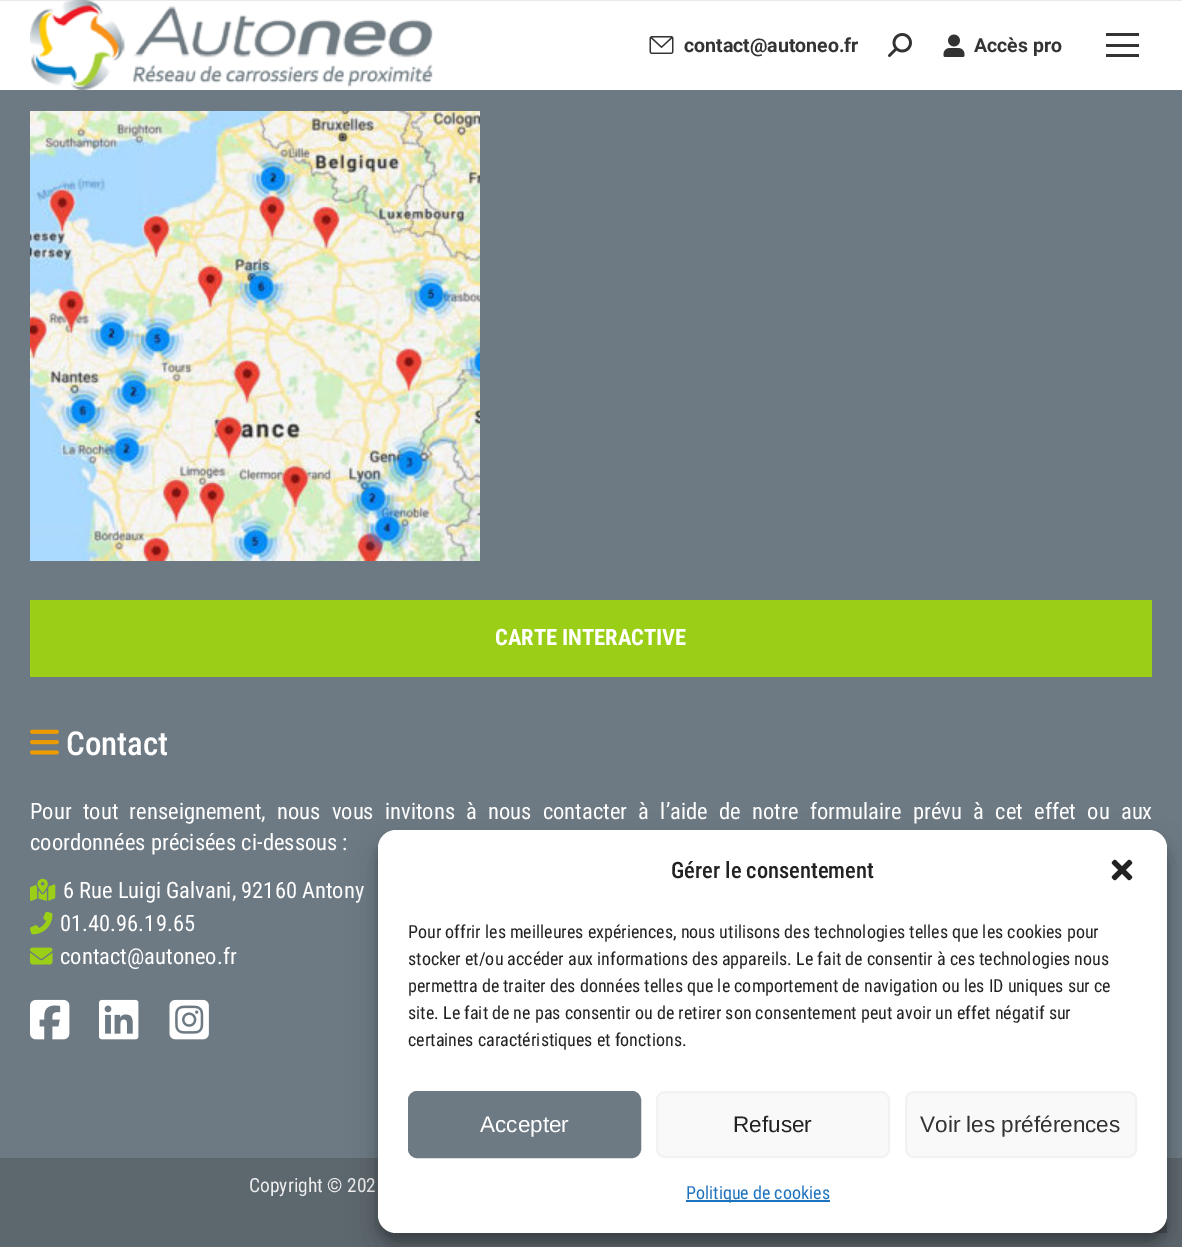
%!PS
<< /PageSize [1182 1247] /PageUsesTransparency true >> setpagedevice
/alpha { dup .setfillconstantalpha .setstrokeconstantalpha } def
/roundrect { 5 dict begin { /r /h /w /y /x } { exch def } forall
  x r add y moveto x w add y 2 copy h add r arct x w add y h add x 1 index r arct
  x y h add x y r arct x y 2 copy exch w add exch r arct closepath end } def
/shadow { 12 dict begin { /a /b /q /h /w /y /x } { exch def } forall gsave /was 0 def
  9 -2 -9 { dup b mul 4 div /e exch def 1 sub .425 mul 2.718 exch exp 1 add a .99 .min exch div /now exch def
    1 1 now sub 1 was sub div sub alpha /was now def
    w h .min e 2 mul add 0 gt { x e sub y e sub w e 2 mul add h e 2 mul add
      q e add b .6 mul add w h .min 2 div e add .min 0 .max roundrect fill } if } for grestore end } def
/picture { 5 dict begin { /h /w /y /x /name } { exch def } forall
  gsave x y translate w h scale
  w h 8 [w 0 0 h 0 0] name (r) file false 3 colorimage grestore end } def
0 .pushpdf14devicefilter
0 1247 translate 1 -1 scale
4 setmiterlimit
0.427 0.478 0.514 setrgbcolor
0 0 1182 1247 rectfill
1 setgray
0 1 1182 89 rectfill
0.914 setgray
0 0 1182 1 rectfill
(img1.rgb) 30 0 403 90 picture
(img2.rgb) 649 36 25 18 picture
/Roboto-Bold [19.5 0 0 -19.5 0 0] selectfont
0.2 setgray
684 52 moveto (contact@autoneo.fr) show
(img3.rgb) 888 33 24 24 picture
(img4.rgb) 943 34 22 23 picture
974 52 moveto (Accès pro) show
1106 33 33 3 rectfill
1106 44 33 3 rectfill
1106 54 33 3 rectfill
(img5.rgb) 30 111 450 450 picture
0.608 0.812 0.09 setrgbcolor
30 600 1122 77 rectfill
/RobotoCondensed-Bold [22.5 0 0 -22.5 0 0] selectfont
1 setgray
495 645 moveto (CARTE INTERACTIVE) show
(img6.rgb) 30 729 29 26 picture
/RobotoCondensed-Medium [33 0 0 -33 0 0] selectfont
66 755 moveto (Contact) show
/RobotoCondensed-Regular [22.5 0 0 -22.5 0 0] selectfont
30 819 moveto 6.1 0 32 (Pour tout renseignement, nous vous invitons à nous contacter à l’aide de notre) widthshow
810 819 moveto (formulaire) show
913 819 moveto 6.1 0 32 (prévu à cet effet ou aux) widthshow
30 850 moveto (coordonnées précisées ci-dessous :) show
(img7.rgb) 30 878 26 23 picture
63 898 moveto (6 Rue Luigi Galvani, 92160 Antony) show
(img8.rgb) 30 911 23 24 picture
60 931 moveto (01.40.96.19.65) show
(img9.rgb) 30 947 23 18 picture
60 964 moveto (contact@autoneo.fr) show
(img10.rgb) 30 999 40 41 picture
(img11.rgb) 99 999 40 41 picture
(img12.rgb) 169 999 40 41 picture
0.365 0.404 0.431 setrgbcolor
0 1158 1182 89 rectfill
/RobotoCondensed-Regular [19.5 0 0 -19.5 0 0] selectfont
0.933 setgray
249 1192 moveto (Copyright © 202) show
0.29 0.322 0.345 setrgbcolor
1149 1215 18 18 rectfill
0 setgray
378 839 789 403 18 4.5 0.23 shadow
378 845 789 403 18 15 0.19 shadow
1 setgray
378 830 789 403 18 roundrect fill
/RobotoCondensed-Medium [22.5 0 0 -22.5 0 0] selectfont
0.133 setgray
671 878 moveto (Gérer le consentement) show
(img13.rgb) 1111 859 22 22 picture
/RobotoCondensed-Regular [18 0 0 -18 0 0] selectfont
408 938 moveto (Pour offrir les meilleures expériences, nous utilisons des technologies telles que les cookies pour) show
408 965 moveto (stocker et/ou accéder aux informations des appareils. Le fait de consentir à ces technologies nous) show
408 992 moveto (permettra de traiter des données telles que le comportement de navigation ou les ID uniques sur ce) show
408 1019 moveto (site. Le fait de ne pas consentir ou de retirer son consentement peut avoir un effet négatif sur) show
408 1046 moveto (certaines caractéristiques et fonctions.) show
0.427 0.478 0.514 setrgbcolor
409 1092 231 65 8 roundrect gsave fill grestore
2 setlinewidth
stroke
/LiberationSans-Regular [22.5 0 0 -22.5 0 0] selectfont
1 setgray
480 1132 moveto (Accepter) show
0.976 setgray
657 1092 232 65 8 roundrect gsave fill grestore
0.949 setgray
stroke
0.133 setgray
733 1132 moveto (Refuser) show
0.976 setgray
906 1092 230 65 8 roundrect gsave fill grestore
0.949 setgray
stroke
0.2 setgray
920 1132 moveto (Voir les préférences) show
0.118 0.451 0.745 setrgbcolor
686 1200 144 2 rectfill
/RobotoCondensed-Regular [18 0 0 -18 0 0] selectfont
686 1199 moveto (Politique de cookies) show
.poppdf14devicefilter showpage
